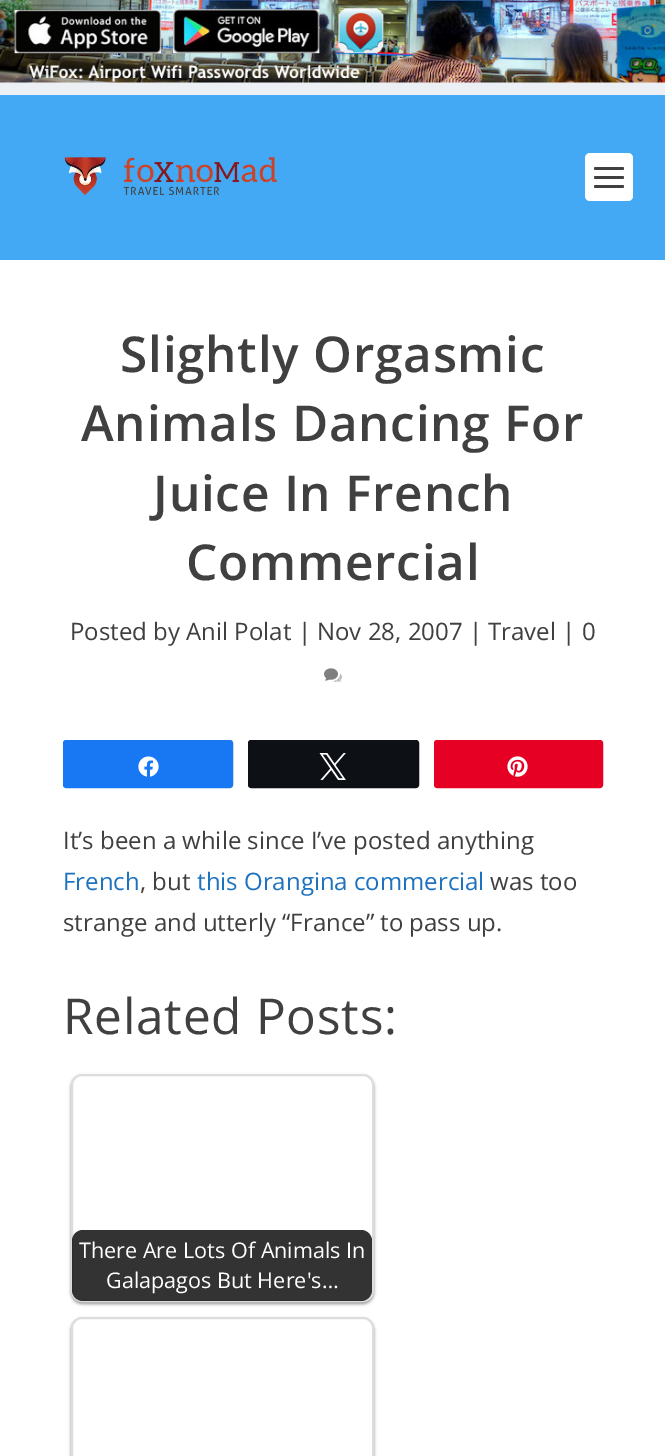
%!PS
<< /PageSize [665 1456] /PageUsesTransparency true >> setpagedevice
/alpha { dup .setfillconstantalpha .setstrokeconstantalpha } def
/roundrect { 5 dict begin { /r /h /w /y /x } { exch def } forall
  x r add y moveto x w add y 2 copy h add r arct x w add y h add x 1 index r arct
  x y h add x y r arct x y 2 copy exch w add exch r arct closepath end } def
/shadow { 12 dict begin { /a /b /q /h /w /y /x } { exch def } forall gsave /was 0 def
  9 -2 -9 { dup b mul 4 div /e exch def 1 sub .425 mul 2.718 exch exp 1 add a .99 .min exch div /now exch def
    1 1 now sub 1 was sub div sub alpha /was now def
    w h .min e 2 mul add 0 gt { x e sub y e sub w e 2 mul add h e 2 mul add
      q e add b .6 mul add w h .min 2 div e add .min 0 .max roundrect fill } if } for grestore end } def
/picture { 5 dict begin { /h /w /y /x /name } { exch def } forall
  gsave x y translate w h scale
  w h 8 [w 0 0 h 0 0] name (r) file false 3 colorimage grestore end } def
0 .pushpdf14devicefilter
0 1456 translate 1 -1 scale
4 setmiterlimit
0.925 0.941 0.961 setrgbcolor
0 0 665 1456 rectfill
(img1.rgb) 0 0 665 83 picture
1 setgray
0 260 665 1196 rectfill
0.263 0.663 0.957 setrgbcolor
0 95 665 165 rectfill
(img2.rgb) 64 157 213 38 picture
1 setgray
585 153 48 48 5 roundrect fill
0.251 setgray
594 167 30 3 1.5 roundrect fill
594 176 30 3 1.5 roundrect fill
594 185 30 3 1.5 roundrect fill
/OpenSans-SemiBold [49.5 0 0 -49.5 0 0] selectfont
120 372 moveto 0.75 0 (Slightly Orgasmic) ashow
81 441 moveto 0.75 0 (Animals Dancing For) ashow
153 511 moveto 0.75 0 (Juice In French) ashow
186 580 moveto 0.75 0 (Commercial) ashow
/OpenSans-Regular [24 0 0 -24 0 0] selectfont
70 640 moveto (Posted by Anil Polat | Nov 28, 2007 | Travel | 0) show
(img3.rgb) 324 668 18 14 picture
0.094 0.467 0.949 setrgbcolor
64 741 168 46 2 roundrect gsave fill grestore
2 setlinewidth
stroke
(img4.rgb) 138 756 21 21 picture
0.051 0.063 0.078 setrgbcolor
249 741 169 46 2 roundrect gsave fill grestore
stroke
(img5.rgb) 319 753 27 27 picture
0.902 0 0.137 setrgbcolor
435 741 167 46 2 roundrect gsave fill grestore
stroke
(img6.rgb) 507 756 21 21 picture
0.251 setgray
63 849 moveto (It’s been a while since I’ve posted anything) show
0.118 0.451 0.745 setrgbcolor
63 890 moveto (French) show
0.251 setgray
140 890 moveto (, but) show
0.118 0.451 0.745 setrgbcolor
197 890 moveto (this Orangina commercial) show
0.251 setgray
490 890 moveto (was too) show
63 931 moveto (strange and utterly “France” to pass up.) show
/OpenSans-Regular [49.5 0 0 -49.5 0 0] selectfont
63 1034 moveto 0.75 0 (Related Posts:) ashow
gsave
newpath 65 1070 moveto 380 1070 lineto 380 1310 lineto 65 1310 lineto closepath 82 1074 moveto 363 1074 lineto 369 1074 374 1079 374 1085 curveto 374 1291 lineto 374 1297 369 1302 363 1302 curveto 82 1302 lineto 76 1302 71 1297 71 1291 curveto 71 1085 lineto 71 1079 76 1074 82 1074 curveto closepath eoclip newpath
0 setgray
71 1076 303 228 11 1.5 0.4 shadow
grestore
0.867 setgray
72 1075 301 226 10 roundrect stroke
0.8 alpha
0 setgray
72 1230 300 71 11 roundrect fill
/OpenSans-Regular [21.6 0 0 -21.6 0 0] selectfont
1 alpha
1 setgray
79 1258 moveto (There Are Lots Of Animals In) show
106 1288 moveto (Galapagos But Here's…) show
gsave
newpath 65 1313 moveto 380 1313 lineto 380 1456 lineto 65 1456 lineto closepath 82 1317 moveto 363 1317 lineto 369 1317 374 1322 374 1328 curveto 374 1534 lineto 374 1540 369 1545 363 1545 curveto 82 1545 lineto 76 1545 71 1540 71 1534 curveto 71 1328 lineto 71 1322 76 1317 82 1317 curveto closepath eoclip newpath
0 setgray
71 1319 303 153 11 1.5 0.4 shadow
grestore
0.867 setgray
72 1318 301 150 10 roundrect stroke
.poppdf14devicefilter showpage
